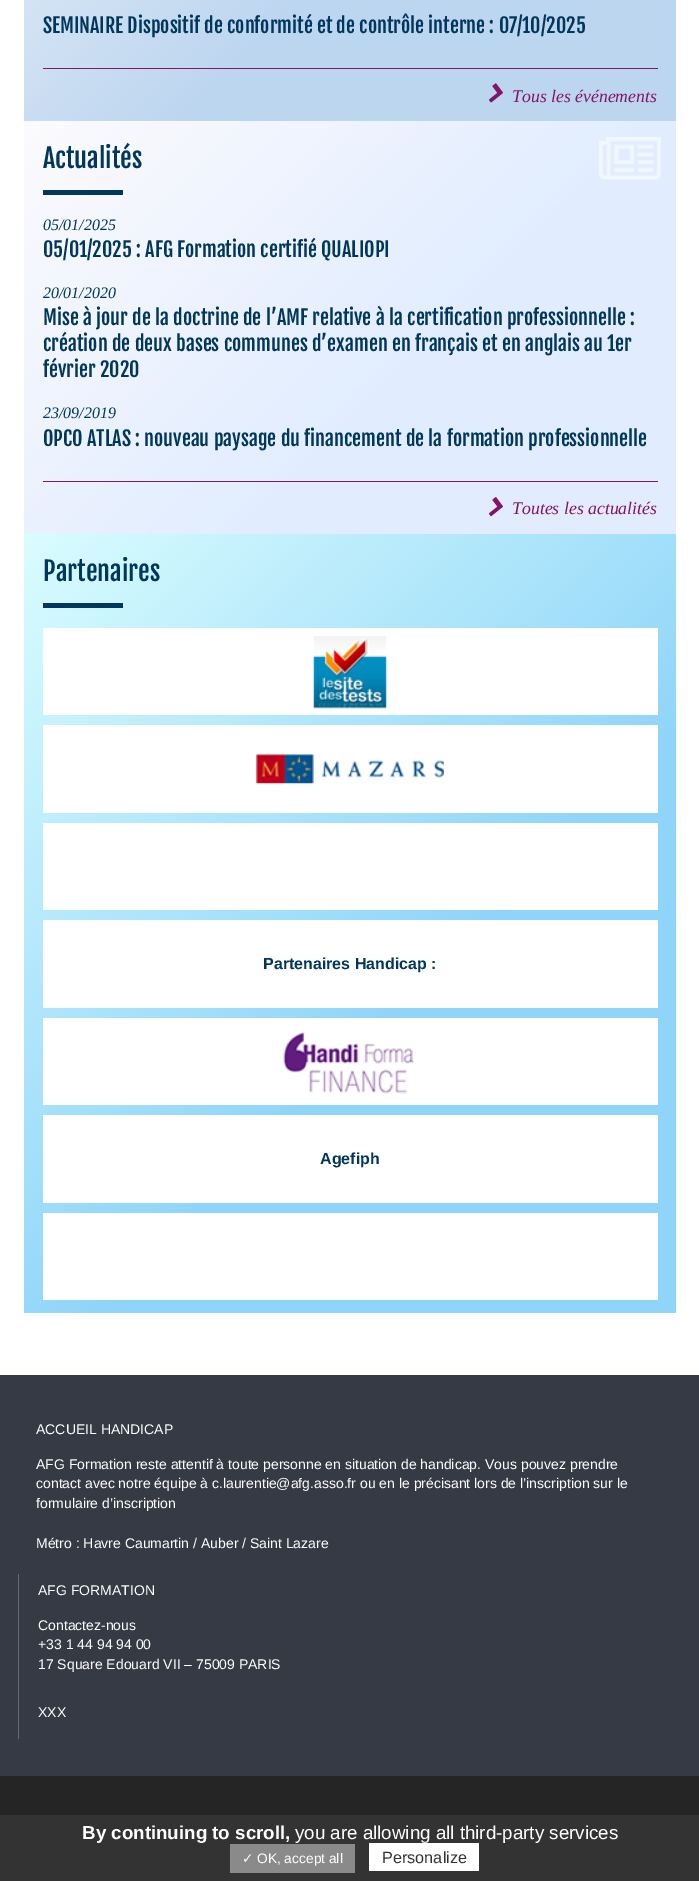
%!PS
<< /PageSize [699 1881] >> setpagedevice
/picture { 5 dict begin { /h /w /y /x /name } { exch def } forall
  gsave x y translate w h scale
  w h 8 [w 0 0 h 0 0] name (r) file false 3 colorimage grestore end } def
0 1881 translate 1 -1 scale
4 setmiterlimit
1 setgray
0 0 699 1881 rectfill
gsave newpath 24 0 moveto 676 0 lineto 676 121 lineto 24 121 lineto closepath clip newpath
<< /ShadingType 2 /ColorSpace /DeviceRGB /Coords [39 -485 661 137] /Extend [true true] /Function << /FunctionType 3 /Domain [0 1] /Functions [<< /FunctionType 2 /Domain [0 1] /C0 [0.984 0.984 1] /C1 [0.741 0.839 0.937] /N 1 >> << /FunctionType 2 /Domain [0 1] /C0 [0.741 0.839 0.937] /C1 [0.741 0.839 0.937] /N 1 >>] /Bounds [0.6] /Encode [0 1 0 1] >> >> shfill grestore
/FjallaOne-Regular [20 0 0 -20 0 0] selectfont
0.004 0.216 0.361 setrgbcolor
43 33 moveto (SEMINAIRE Dispositif de conformité et de contrôle interne : 07/10/2025) show
0.514 0.082 0.412 setrgbcolor
43 68 615 1 rectfill
(img1.rgb) 489 83 14 20 picture
/LiberationSerif-Italic [17.75 0 0 -17.75 0 0] selectfont
512 102 moveto (Tous les événements) show
gsave newpath 24 121 moveto 676 121 lineto 676 534 lineto 24 534 lineto closepath clip newpath
<< /ShadingType 2 /ColorSpace /DeviceRGB /Coords [84 61 616 594] /Extend [true true] /Function << /FunctionType 3 /Domain [0 1] /Functions [<< /FunctionType 2 /Domain [0 1] /C0 [0.988 0.984 0.992] /C1 [0.882 0.929 1] /N 1 >> << /FunctionType 2 /Domain [0 1] /C0 [0.882 0.929 1] /C1 [0.882 0.929 1] /N 1 >>] /Bounds [0.6] /Encode [0 1 0 1] >> >> shfill grestore
(img2.rgb) 599 137 62 43 picture
/FjallaOne-Regular [26 0 0 -26 0 0] selectfont
0.004 0.216 0.361 setrgbcolor
43 168 moveto (Actualités) show
43 190 80 5 rectfill
/LiberationSerif-Italic [16 0 0 -16 0 0] selectfont
43 230 moveto (05/01/2025) show
/FjallaOne-Regular [20 0 0 -20 0 0] selectfont
43 257 moveto (05/01/2025 : AFG Formation certifié QUALIOPI) show
/LiberationSerif-Italic [16 0 0 -16 0 0] selectfont
43 298 moveto (20/01/2020) show
/FjallaOne-Regular [20 0 0 -20 0 0] selectfont
43 325 moveto (Mise à jour de la doctrine de l’AMF relative à la certification professionnelle :) show
43 351 moveto (création de deux bases communes d’examen en français et en anglais au 1er) show
43 377 moveto (février 2020) show
/LiberationSerif-Italic [16 0 0 -16 0 0] selectfont
43 418 moveto (23/09/2019) show
/FjallaOne-Regular [20 0 0 -20 0 0] selectfont
43 446 moveto (OPCO ATLAS : nouveau paysage du financement de la formation professionnelle) show
0.514 0.082 0.412 setrgbcolor
43 481 615 1 rectfill
(img3.rgb) 489 497 14 20 picture
/LiberationSerif-Italic [17.75 0 0 -17.75 0 0] selectfont
512 514 moveto (Toutes les actualités) show
gsave newpath 24 534 moveto 676 534 lineto 676 1313 lineto 24 1313 lineto closepath clip newpath
<< /ShadingType 2 /ColorSpace /DeviceRGB /Coords [-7.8 565 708 1281] /Extend [true true] /Function << /FunctionType 3 /Domain [0 1] /Functions [<< /FunctionType 2 /Domain [0 1] /C0 [0.855 0.992 1] /C1 [0.561 0.835 0.976] /N 1 >> << /FunctionType 2 /Domain [0 1] /C0 [0.561 0.835 0.976] /C1 [0.561 0.835 0.976] /N 1 >>] /Bounds [0.6] /Encode [0 1 0 1] >> >> shfill grestore
/FjallaOne-Regular [26 0 0 -26 0 0] selectfont
0.004 0.216 0.361 setrgbcolor
43 581 moveto (Partenaires) show
43 603 80 5 rectfill
1 setgray
43 628 615 87 rectfill
(img4.rgb) 313 636 74 73 picture
43 725 615 88 rectfill
(img5.rgb) 256 754 188 30 picture
43 823 615 87 rectfill
43 920 615 88 rectfill
/LiberationSans-Bold [16 0 0 -16 0 0] selectfont
0.004 0.216 0.361 setrgbcolor
263 969 moveto (Partenaires Handicap :) show
1 setgray
43 1018 615 87 rectfill
(img6.rgb) 283 1032 131 62 picture
43 1115 615 88 rectfill
0.004 0.216 0.361 setrgbcolor
320 1164 moveto (Agefiph) show
1 setgray
43 1213 615 87 rectfill
0.212 0.227 0.267 setrgbcolor
0 1375 699 401 rectfill
/LiberationSans-Regular [14 0 0 -14 0 0] selectfont
1 setgray
36 1434 moveto (ACCUEIL HANDICAP) show
36 1469 moveto (AFG Formation reste attentif à toute personne en situation de handicap. Vous pouvez prendre) show
36 1488 moveto (contact avec notre équipe à c.laurentie@afg.asso.fr ou en le précisant lors de l’inscription sur le) show
36 1508 moveto (formulaire d’inscription) show
36 1548 moveto (Métro : Havre Caumartin / Auber / Saint Lazare) show
0.412 0.412 0.42 setrgbcolor
18 1574 1 165 rectfill
1 setgray
38 1595 moveto (AFG FORMATION) show
38 1630 moveto (Contactez-nous) show
38 1649 moveto (+33 1 44 94 94 00) show
38 1669 moveto (17 Square Edouard VII – 75009 PARIS) show
38 1717 moveto (XXX) show
0.145 setgray
0 1776 699 39 rectfill
0.2 setgray
0 1815 699 66 rectfill
/LiberationSans-Bold [18.75 0 0 -18.75 0 0] selectfont
1 setgray
82 1839 moveto (By continuing to scroll,) show
/LiberationSans-Regular [18.75 0 0 -18.75 0 0] selectfont
295 1839 moveto (you are allowing all third-party services) show
0.541 setgray
230 1844 125 29 rectfill
/DejaVuSans-Regular [13.75 0 0 -13.75 0 0] selectfont
1 setgray
242 1863 moveto (✓) show
/LiberationSans-Regular [13.75 0 0 -13.75 0 0] selectfont
257 1863 moveto (OK, accept all) show
369 1843 110 28 rectfill
/LiberationSans-Regular [16.25 0 0 -16.25 0 0] selectfont
0.2 setgray
382 1863 moveto (Personalize) show
showpage
